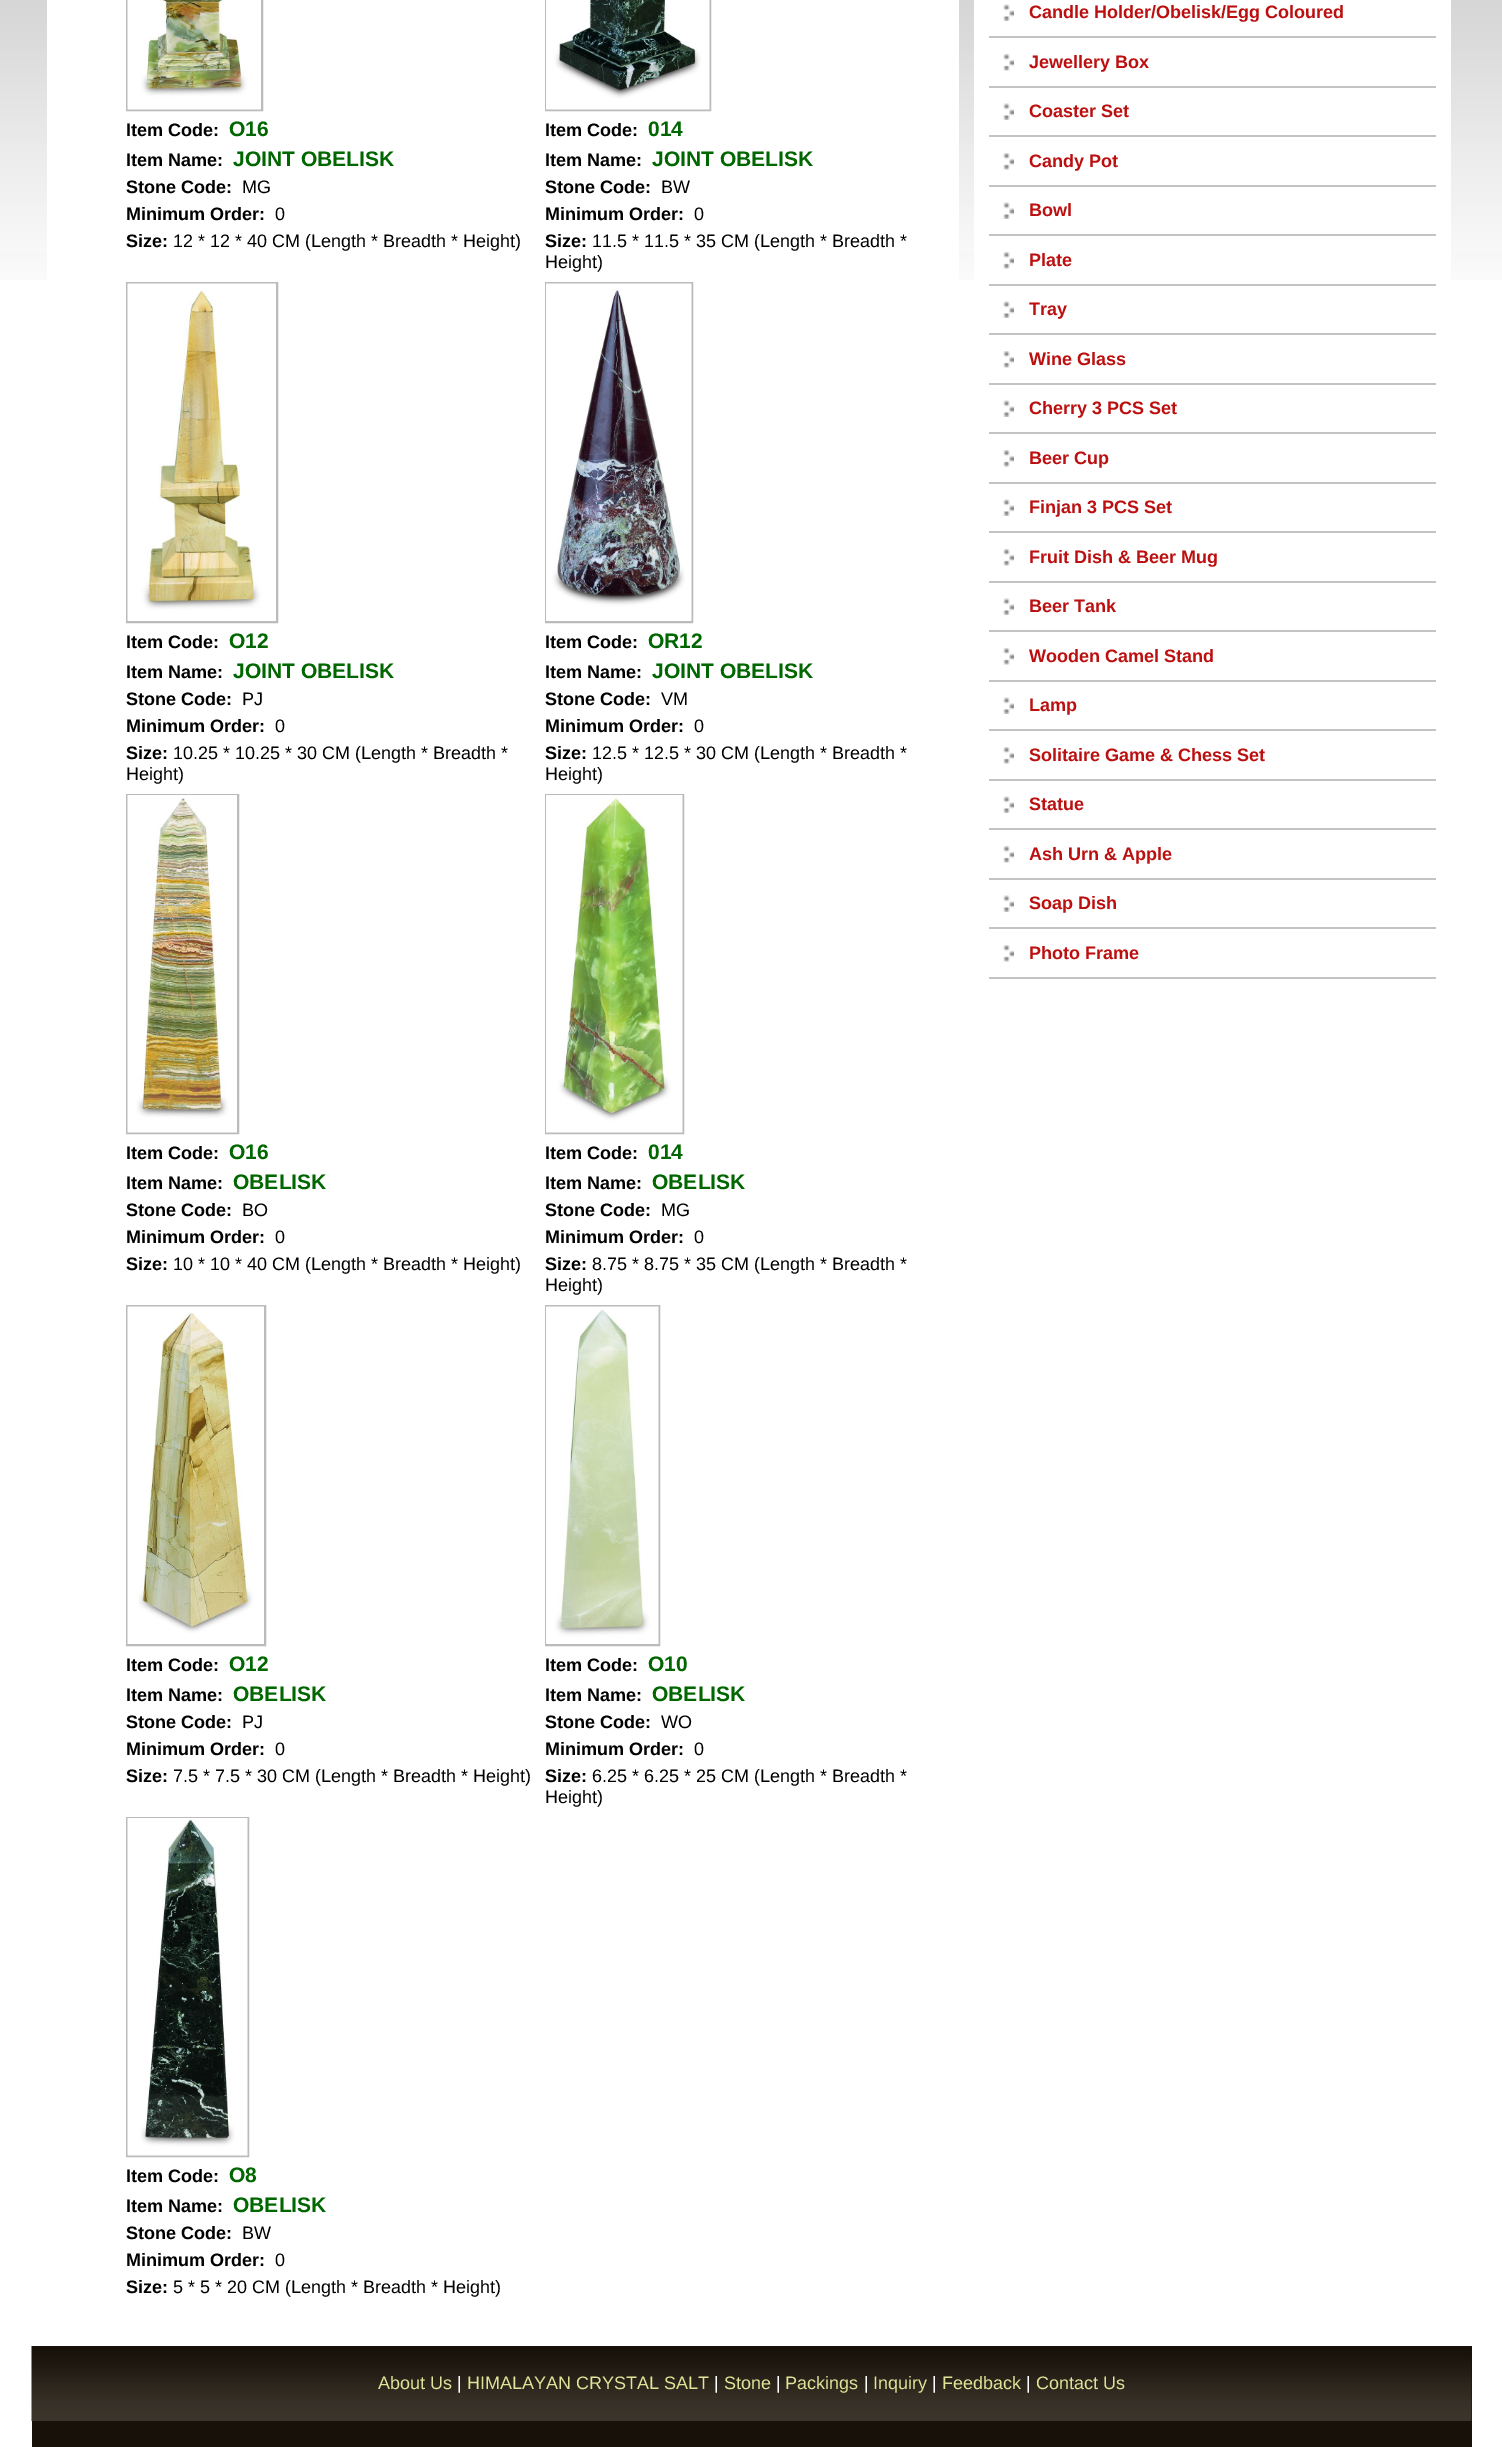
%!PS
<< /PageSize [1502 2447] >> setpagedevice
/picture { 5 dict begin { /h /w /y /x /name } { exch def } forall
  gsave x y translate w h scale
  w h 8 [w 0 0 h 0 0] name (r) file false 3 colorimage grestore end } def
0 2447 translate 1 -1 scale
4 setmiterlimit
1 setgray
0 0 1502 2447 rectfill
(img1.rgb) 0 0 1502 280 picture
47 0 912 280 rectfill
0.733 setgray
2 setlinewidth
127 -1 135 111 rectstroke
(img2.rgb) 127 0 134 110 picture
/LiberationSans-Bold [18 0 0 -18 0 0] selectfont
0 setgray
126 136 moveto (Item Code:) show
/LiberationSans-Bold [21 0 0 -21 0 0] selectfont
0 0.4 0 setrgbcolor
229 136 moveto (O16) show
/LiberationSans-Bold [18 0 0 -18 0 0] selectfont
0 setgray
126 166 moveto (Item Name:) show
/LiberationSans-Bold [21 0 0 -21 0 0] selectfont
0 0.4 0 setrgbcolor
233 166 moveto (JOINT OBELISK) show
/LiberationSans-Bold [18 0 0 -18 0 0] selectfont
0 setgray
126 193 moveto (Stone Code:) show
/LiberationSans-Regular [18 0 0 -18 0 0] selectfont
242 193 moveto (MG) show
/LiberationSans-Bold [18 0 0 -18 0 0] selectfont
126 220 moveto (Minimum Order:) show
/LiberationSans-Regular [18 0 0 -18 0 0] selectfont
275 220 moveto (0) show
/LiberationSans-Bold [18 0 0 -18 0 0] selectfont
126 247 moveto (Size:) show
/LiberationSans-Regular [18 0 0 -18 0 0] selectfont
173 247 moveto (12 * 12 * 40 CM \(Length * Breadth * Height\)) show
0.733 setgray
546 -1 164 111 rectstroke
(img3.rgb) 546 0 164 110 picture
/LiberationSans-Bold [18 0 0 -18 0 0] selectfont
0 setgray
545 136 moveto (Item Code:) show
/LiberationSans-Bold [21 0 0 -21 0 0] selectfont
0 0.4 0 setrgbcolor
648 136 moveto (014) show
/LiberationSans-Bold [18 0 0 -18 0 0] selectfont
0 setgray
545 166 moveto (Item Name:) show
/LiberationSans-Bold [21 0 0 -21 0 0] selectfont
0 0.4 0 setrgbcolor
652 166 moveto (JOINT OBELISK) show
/LiberationSans-Bold [18 0 0 -18 0 0] selectfont
0 setgray
545 193 moveto (Stone Code:) show
/LiberationSans-Regular [18 0 0 -18 0 0] selectfont
661 193 moveto (BW) show
/LiberationSans-Bold [18 0 0 -18 0 0] selectfont
545 220 moveto (Minimum Order:) show
/LiberationSans-Regular [18 0 0 -18 0 0] selectfont
694 220 moveto (0) show
/LiberationSans-Bold [18 0 0 -18 0 0] selectfont
545 247 moveto (Size:) show
/LiberationSans-Regular [18 0 0 -18 0 0] selectfont
592 247 moveto (11.5 * 11.5 * 35 CM \(Length * Breadth *) show
545 268 moveto (Height\)) show
0.733 setgray
127 283 150 339 rectstroke
(img4.rgb) 127 283 149 338 picture
/LiberationSans-Bold [18 0 0 -18 0 0] selectfont
0 setgray
126 648 moveto (Item Code:) show
/LiberationSans-Bold [21 0 0 -21 0 0] selectfont
0 0.4 0 setrgbcolor
229 648 moveto (O12) show
/LiberationSans-Bold [18 0 0 -18 0 0] selectfont
0 setgray
126 678 moveto (Item Name:) show
/LiberationSans-Bold [21 0 0 -21 0 0] selectfont
0 0.4 0 setrgbcolor
233 678 moveto (JOINT OBELISK) show
/LiberationSans-Bold [18 0 0 -18 0 0] selectfont
0 setgray
126 705 moveto (Stone Code:) show
/LiberationSans-Regular [18 0 0 -18 0 0] selectfont
242 705 moveto (PJ) show
/LiberationSans-Bold [18 0 0 -18 0 0] selectfont
126 732 moveto (Minimum Order:) show
/LiberationSans-Regular [18 0 0 -18 0 0] selectfont
275 732 moveto (0) show
/LiberationSans-Bold [18 0 0 -18 0 0] selectfont
126 759 moveto (Size:) show
/LiberationSans-Regular [18 0 0 -18 0 0] selectfont
173 759 moveto (10.25 * 10.25 * 30 CM \(Length * Breadth *) show
126 780 moveto (Height\)) show
0.733 setgray
546 283 146 339 rectstroke
(img5.rgb) 546 283 146 338 picture
/LiberationSans-Bold [18 0 0 -18 0 0] selectfont
0 setgray
545 648 moveto (Item Code:) show
/LiberationSans-Bold [21 0 0 -21 0 0] selectfont
0 0.4 0 setrgbcolor
648 648 moveto (OR12) show
/LiberationSans-Bold [18 0 0 -18 0 0] selectfont
0 setgray
545 678 moveto (Item Name:) show
/LiberationSans-Bold [21 0 0 -21 0 0] selectfont
0 0.4 0 setrgbcolor
652 678 moveto (JOINT OBELISK) show
/LiberationSans-Bold [18 0 0 -18 0 0] selectfont
0 setgray
545 705 moveto (Stone Code:) show
/LiberationSans-Regular [18 0 0 -18 0 0] selectfont
661 705 moveto (VM) show
/LiberationSans-Bold [18 0 0 -18 0 0] selectfont
545 732 moveto (Minimum Order:) show
/LiberationSans-Regular [18 0 0 -18 0 0] selectfont
694 732 moveto (0) show
/LiberationSans-Bold [18 0 0 -18 0 0] selectfont
545 759 moveto (Size:) show
/LiberationSans-Regular [18 0 0 -18 0 0] selectfont
592 759 moveto (12.5 * 12.5 * 30 CM \(Length * Breadth *) show
545 780 moveto (Height\)) show
0.733 setgray
127 795 111 338 rectstroke
(img6.rgb) 127 795 110 338 picture
/LiberationSans-Bold [18 0 0 -18 0 0] selectfont
0 setgray
126 1159 moveto (Item Code:) show
/LiberationSans-Bold [21 0 0 -21 0 0] selectfont
0 0.4 0 setrgbcolor
229 1159 moveto (O16) show
/LiberationSans-Bold [18 0 0 -18 0 0] selectfont
0 setgray
126 1189 moveto (Item Name:) show
/LiberationSans-Bold [21 0 0 -21 0 0] selectfont
0 0.4 0 setrgbcolor
233 1189 moveto (OBELISK) show
/LiberationSans-Bold [18 0 0 -18 0 0] selectfont
0 setgray
126 1216 moveto (Stone Code:) show
/LiberationSans-Regular [18 0 0 -18 0 0] selectfont
242 1216 moveto (BO) show
/LiberationSans-Bold [18 0 0 -18 0 0] selectfont
126 1243 moveto (Minimum Order:) show
/LiberationSans-Regular [18 0 0 -18 0 0] selectfont
275 1243 moveto (0) show
/LiberationSans-Bold [18 0 0 -18 0 0] selectfont
126 1270 moveto (Size:) show
/LiberationSans-Regular [18 0 0 -18 0 0] selectfont
173 1270 moveto (10 * 10 * 40 CM \(Length * Breadth * Height\)) show
0.733 setgray
546 795 137 338 rectstroke
(img7.rgb) 546 795 137 338 picture
/LiberationSans-Bold [18 0 0 -18 0 0] selectfont
0 setgray
545 1159 moveto (Item Code:) show
/LiberationSans-Bold [21 0 0 -21 0 0] selectfont
0 0.4 0 setrgbcolor
648 1159 moveto (014) show
/LiberationSans-Bold [18 0 0 -18 0 0] selectfont
0 setgray
545 1189 moveto (Item Name:) show
/LiberationSans-Bold [21 0 0 -21 0 0] selectfont
0 0.4 0 setrgbcolor
652 1189 moveto (OBELISK) show
/LiberationSans-Bold [18 0 0 -18 0 0] selectfont
0 setgray
545 1216 moveto (Stone Code:) show
/LiberationSans-Regular [18 0 0 -18 0 0] selectfont
661 1216 moveto (MG) show
/LiberationSans-Bold [18 0 0 -18 0 0] selectfont
545 1243 moveto (Minimum Order:) show
/LiberationSans-Regular [18 0 0 -18 0 0] selectfont
694 1243 moveto (0) show
/LiberationSans-Bold [18 0 0 -18 0 0] selectfont
545 1270 moveto (Size:) show
/LiberationSans-Regular [18 0 0 -18 0 0] selectfont
592 1270 moveto (8.75 * 8.75 * 35 CM \(Length * Breadth *) show
545 1291 moveto (Height\)) show
0.733 setgray
127 1306 138 339 rectstroke
(img8.rgb) 127 1306 137 338 picture
/LiberationSans-Bold [18 0 0 -18 0 0] selectfont
0 setgray
126 1671 moveto (Item Code:) show
/LiberationSans-Bold [21 0 0 -21 0 0] selectfont
0 0.4 0 setrgbcolor
229 1671 moveto (O12) show
/LiberationSans-Bold [18 0 0 -18 0 0] selectfont
0 setgray
126 1701 moveto (Item Name:) show
/LiberationSans-Bold [21 0 0 -21 0 0] selectfont
0 0.4 0 setrgbcolor
233 1701 moveto (OBELISK) show
/LiberationSans-Bold [18 0 0 -18 0 0] selectfont
0 setgray
126 1728 moveto (Stone Code:) show
/LiberationSans-Regular [18 0 0 -18 0 0] selectfont
242 1728 moveto (PJ) show
/LiberationSans-Bold [18 0 0 -18 0 0] selectfont
126 1755 moveto (Minimum Order:) show
/LiberationSans-Regular [18 0 0 -18 0 0] selectfont
275 1755 moveto (0) show
/LiberationSans-Bold [18 0 0 -18 0 0] selectfont
126 1782 moveto (Size:) show
/LiberationSans-Regular [18 0 0 -18 0 0] selectfont
173 1782 moveto (7.5 * 7.5 * 30 CM \(Length * Breadth * Height\)) show
0.733 setgray
546 1306 113 339 rectstroke
(img9.rgb) 546 1306 113 338 picture
/LiberationSans-Bold [18 0 0 -18 0 0] selectfont
0 setgray
545 1671 moveto (Item Code:) show
/LiberationSans-Bold [21 0 0 -21 0 0] selectfont
0 0.4 0 setrgbcolor
648 1671 moveto (O10) show
/LiberationSans-Bold [18 0 0 -18 0 0] selectfont
0 setgray
545 1701 moveto (Item Name:) show
/LiberationSans-Bold [21 0 0 -21 0 0] selectfont
0 0.4 0 setrgbcolor
652 1701 moveto (OBELISK) show
/LiberationSans-Bold [18 0 0 -18 0 0] selectfont
0 setgray
545 1728 moveto (Stone Code:) show
/LiberationSans-Regular [18 0 0 -18 0 0] selectfont
661 1728 moveto (WO) show
/LiberationSans-Bold [18 0 0 -18 0 0] selectfont
545 1755 moveto (Minimum Order:) show
/LiberationSans-Regular [18 0 0 -18 0 0] selectfont
694 1755 moveto (0) show
/LiberationSans-Bold [18 0 0 -18 0 0] selectfont
545 1782 moveto (Size:) show
/LiberationSans-Regular [18 0 0 -18 0 0] selectfont
592 1782 moveto (6.25 * 6.25 * 25 CM \(Length * Breadth *) show
545 1803 moveto (Height\)) show
0.733 setgray
127 1818 121 338 rectstroke
(img10.rgb) 127 1818 121 338 picture
/LiberationSans-Bold [18 0 0 -18 0 0] selectfont
0 setgray
126 2182 moveto (Item Code:) show
/LiberationSans-Bold [21 0 0 -21 0 0] selectfont
0 0.4 0 setrgbcolor
229 2182 moveto (O8) show
/LiberationSans-Bold [18 0 0 -18 0 0] selectfont
0 setgray
126 2212 moveto (Item Name:) show
/LiberationSans-Bold [21 0 0 -21 0 0] selectfont
0 0.4 0 setrgbcolor
233 2212 moveto (OBELISK) show
/LiberationSans-Bold [18 0 0 -18 0 0] selectfont
0 setgray
126 2239 moveto (Stone Code:) show
/LiberationSans-Regular [18 0 0 -18 0 0] selectfont
242 2239 moveto (BW) show
/LiberationSans-Bold [18 0 0 -18 0 0] selectfont
126 2266 moveto (Minimum Order:) show
/LiberationSans-Regular [18 0 0 -18 0 0] selectfont
275 2266 moveto (0) show
/LiberationSans-Bold [18 0 0 -18 0 0] selectfont
126 2293 moveto (Size:) show
/LiberationSans-Regular [18 0 0 -18 0 0] selectfont
173 2293 moveto (5 * 5 * 20 CM \(Length * Breadth * Height\)) show
1 setgray
974 0 477 280 rectfill
0.765 setgray
989 36 447 2 rectfill
(img11.rgb) 1003 4 11 17 picture
/LiberationSans-Bold [18 0 0 -18 0 0] selectfont
0.737 0.059 0.059 setrgbcolor
1029 18 moveto (Candle Holder/Obelisk/Egg Coloured) show
0.765 setgray
989 86 447 2 rectfill
(img12.rgb) 1003 54 11 17 picture
0.737 0.059 0.059 setrgbcolor
1029 68 moveto (Jewellery Box) show
0.765 setgray
989 135 447 2 rectfill
(img11.rgb) 1003 103 11 17 picture
0.737 0.059 0.059 setrgbcolor
1029 117 moveto (Coaster Set) show
0.765 setgray
989 185 447 2 rectfill
(img12.rgb) 1003 153 11 17 picture
0.737 0.059 0.059 setrgbcolor
1029 167 moveto (Candy Pot) show
0.765 setgray
989 234 447 2 rectfill
(img11.rgb) 1003 202 11 17 picture
0.737 0.059 0.059 setrgbcolor
1029 216 moveto (Bowl) show
0.765 setgray
989 284 447 2 rectfill
(img12.rgb) 1003 252 11 17 picture
0.737 0.059 0.059 setrgbcolor
1029 266 moveto (Plate) show
0.765 setgray
989 333 447 2 rectfill
(img11.rgb) 1003 301 11 17 picture
0.737 0.059 0.059 setrgbcolor
1029 315 moveto (Tray) show
0.765 setgray
989 383 447 2 rectfill
(img12.rgb) 1003 351 11 17 picture
0.737 0.059 0.059 setrgbcolor
1029 365 moveto (Wine Glass) show
0.765 setgray
989 432 447 2 rectfill
(img11.rgb) 1003 400 11 17 picture
0.737 0.059 0.059 setrgbcolor
1029 414 moveto (Cherry 3 PCS Set) show
0.765 setgray
989 482 447 2 rectfill
(img12.rgb) 1003 450 11 17 picture
0.737 0.059 0.059 setrgbcolor
1029 464 moveto (Beer Cup) show
0.765 setgray
989 531 447 2 rectfill
(img11.rgb) 1003 499 11 17 picture
0.737 0.059 0.059 setrgbcolor
1029 513 moveto (Finjan 3 PCS Set) show
0.765 setgray
989 581 447 2 rectfill
(img12.rgb) 1003 549 11 17 picture
0.737 0.059 0.059 setrgbcolor
1029 563 moveto (Fruit Dish & Beer Mug) show
0.765 setgray
989 630 447 2 rectfill
(img11.rgb) 1003 598 11 17 picture
0.737 0.059 0.059 setrgbcolor
1029 612 moveto (Beer Tank) show
0.765 setgray
989 680 447 2 rectfill
(img12.rgb) 1003 648 11 17 picture
0.737 0.059 0.059 setrgbcolor
1029 662 moveto (Wooden Camel Stand) show
0.765 setgray
989 729 447 2 rectfill
(img11.rgb) 1003 697 11 17 picture
0.737 0.059 0.059 setrgbcolor
1029 711 moveto (Lamp) show
0.765 setgray
989 779 447 2 rectfill
(img12.rgb) 1003 747 11 17 picture
0.737 0.059 0.059 setrgbcolor
1029 761 moveto (Solitaire Game & Chess Set) show
0.765 setgray
989 828 447 2 rectfill
(img11.rgb) 1003 796 11 17 picture
0.737 0.059 0.059 setrgbcolor
1029 810 moveto (Statue) show
0.765 setgray
989 878 447 2 rectfill
(img12.rgb) 1003 846 11 17 picture
0.737 0.059 0.059 setrgbcolor
1029 860 moveto (Ash Urn & Apple) show
0.765 setgray
989 927 447 2 rectfill
(img11.rgb) 1003 895 11 17 picture
0.737 0.059 0.059 setrgbcolor
1029 909 moveto (Soap Dish) show
0.765 setgray
989 977 447 2 rectfill
(img12.rgb) 1003 945 11 17 picture
0.737 0.059 0.059 setrgbcolor
1029 959 moveto (Photo Frame) show
0.094 0.067 0.035 setrgbcolor
32 2346 1440 101 rectfill
(img13.rgb) 31 2346 1441 75 picture
/LiberationSans-Regular [18 0 0 -18 0 0] selectfont
0.882 0.89 0.596 setrgbcolor
378 2389 moveto (About Us) show
1 setgray
457 2389 moveto (|) show
0.882 0.89 0.596 setrgbcolor
467 2389 moveto (HIMALAYAN CRYSTAL SALT) show
1 setgray
714 2389 moveto (|) show
0.882 0.89 0.596 setrgbcolor
724 2389 moveto (Stone) show
1 setgray
776 2389 moveto (|) show
0.882 0.89 0.596 setrgbcolor
785 2389 moveto (Packings) show
1 setgray
864 2389 moveto (|) show
0.882 0.89 0.596 setrgbcolor
873 2389 moveto (Inquiry) show
1 setgray
932 2389 moveto (|) show
0.882 0.89 0.596 setrgbcolor
942 2389 moveto (Feedback) show
1 setgray
1026 2389 moveto (|) show
0.882 0.89 0.596 setrgbcolor
1036 2389 moveto (Contact Us) show
showpage
